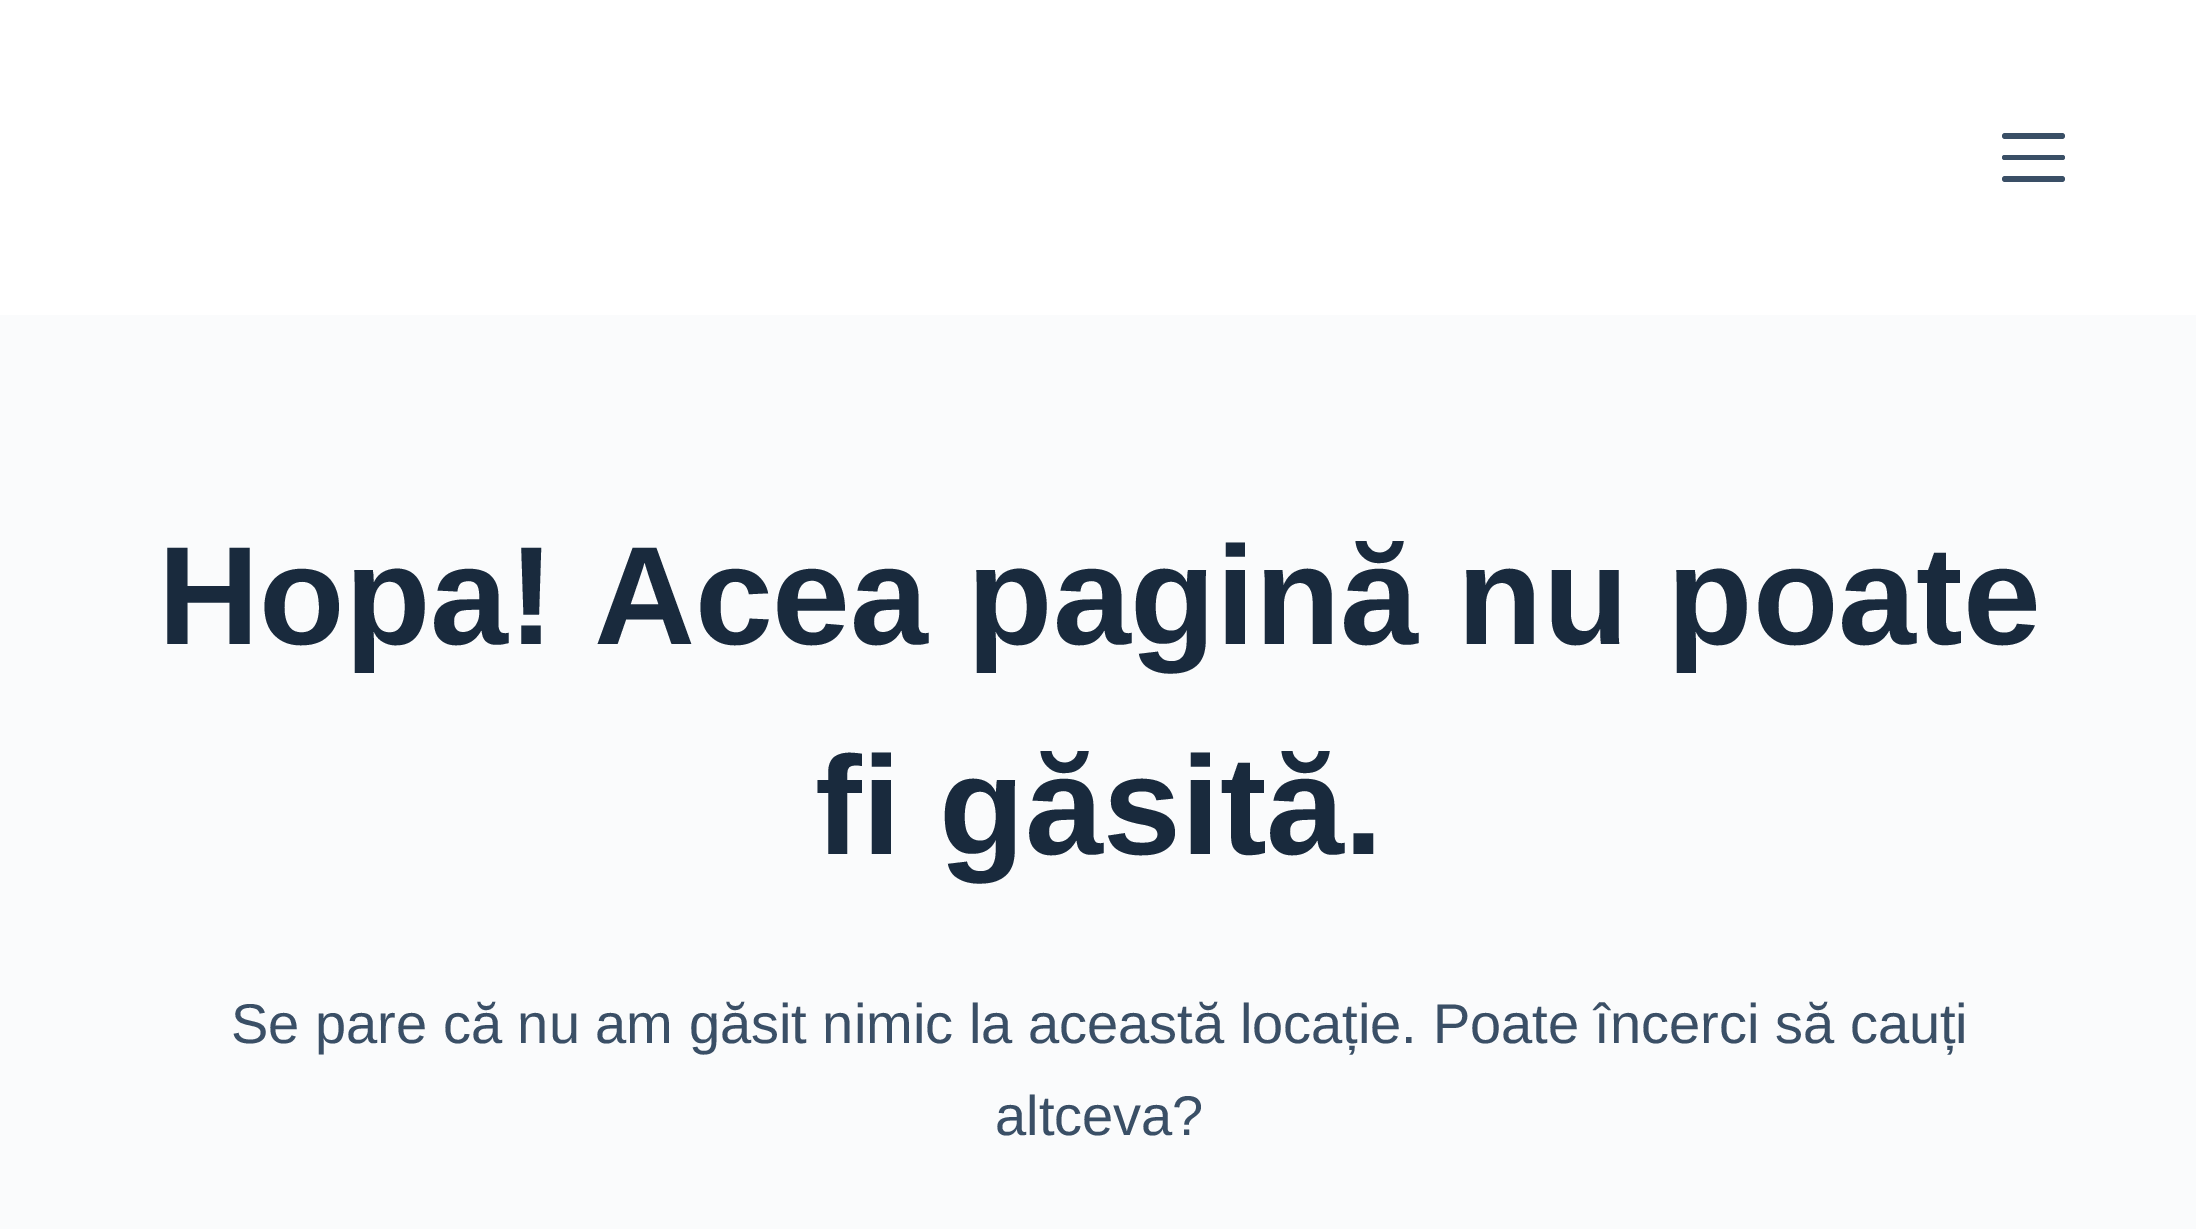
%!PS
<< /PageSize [2196 1229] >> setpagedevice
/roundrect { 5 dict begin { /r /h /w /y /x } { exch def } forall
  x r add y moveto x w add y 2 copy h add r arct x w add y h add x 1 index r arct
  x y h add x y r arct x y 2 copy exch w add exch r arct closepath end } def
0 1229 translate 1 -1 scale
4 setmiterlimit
0.98 0.984 0.988 setrgbcolor
0 0 2196 1229 rectfill
1 setgray
0 0 2196 315 rectfill
0.227 0.31 0.4 setrgbcolor
2002 133 63 6 3 roundrect fill
2002 155 63 5 2.5 roundrect fill
2002 176 63 6 3 roundrect fill
/LiberationSans-Bold [140 0 0 -140 0 0] selectfont
0.098 0.165 0.239 setrgbcolor
158 644 moveto (Hopa! Acea pagină nu poate) show
815 854 moveto (fi găsită.) show
/LiberationSans-Regular [56 0 0 -56 0 0] selectfont
0.227 0.31 0.4 setrgbcolor
231 1043 moveto (Se pare că nu am găsit nimic la această locație. Poate încerci să cauți) show
995 1135 moveto (altceva?) show
showpage
